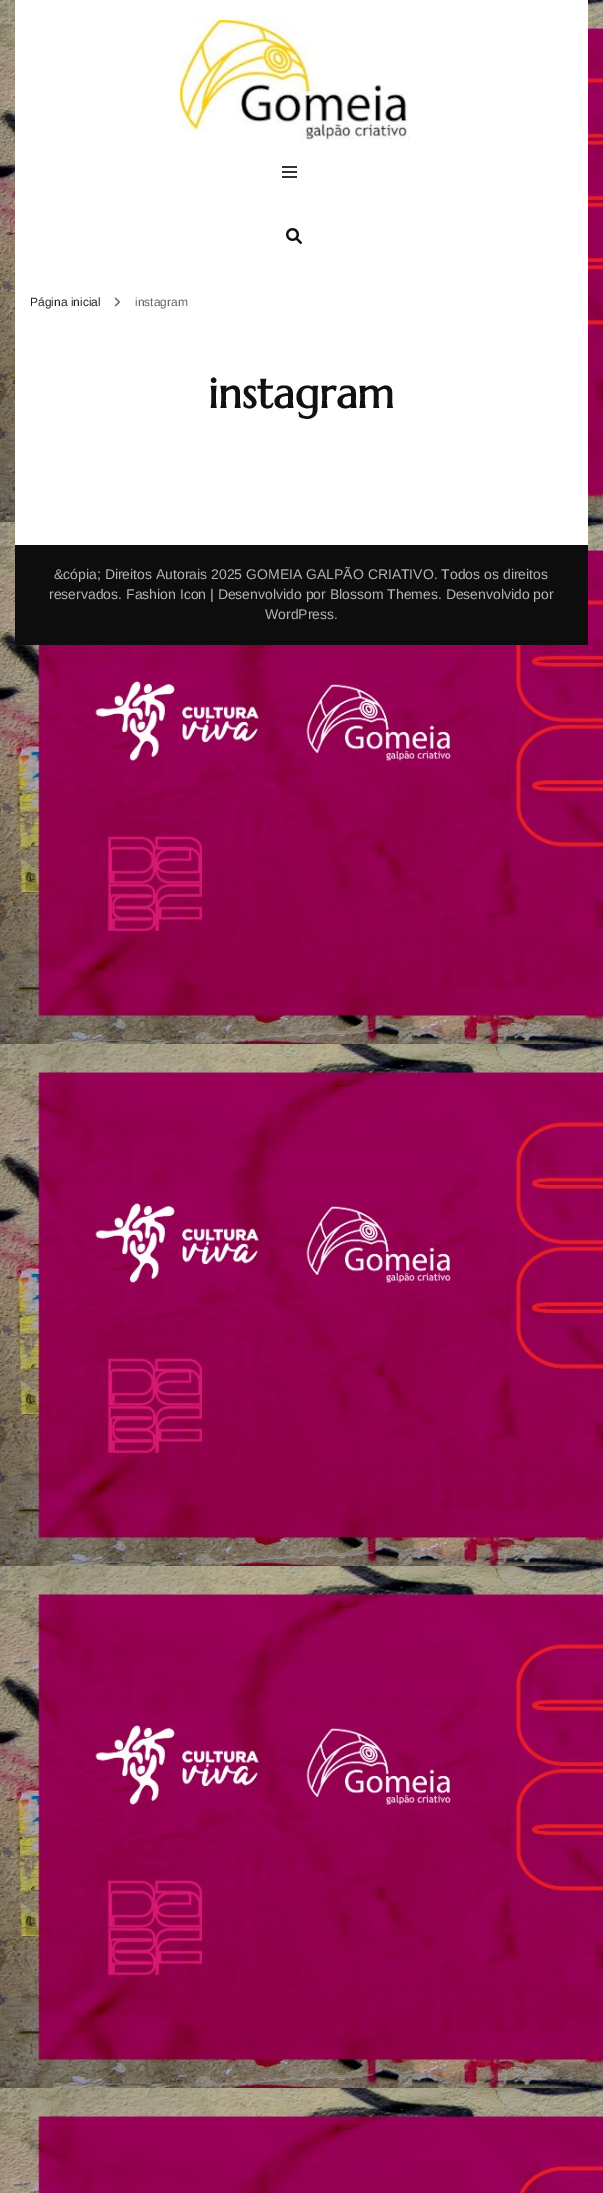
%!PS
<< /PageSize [603 2193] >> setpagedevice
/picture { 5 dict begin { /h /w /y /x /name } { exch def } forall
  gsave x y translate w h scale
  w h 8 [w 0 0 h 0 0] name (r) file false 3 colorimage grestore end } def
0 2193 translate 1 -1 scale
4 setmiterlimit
1 setgray
0 0 603 2193 rectfill
(img1.rgb) 0 0 603 2193 picture
15 0 573 545 rectfill
(img2.rgb) 180 20 229 120 picture
0.196 0.2 0.22 setrgbcolor
282 171 15 2 rectfill
282 166 15 2 rectfill
282 176 15 2 rectfill
(img3.rgb) 286 228 16 16 picture
/LiberationSans-Regular [12 0 0 -12 0 0] selectfont
0.133 setgray
30 306 moveto (Página inicial) show
(img4.rgb) 114 297 6 10 picture
0.4 setgray
135 306 moveto (instagram) show
/Marcellus-Bold [42 0 0 -42 0 0] selectfont
0.067 setgray
208 408 moveto (instagram) show
0.051 setgray
15 545 573 100 rectfill
/LiberationSans-Regular [14 0 0 -14 0 0] selectfont
0.71 setgray
54 579 moveto (&cópia; Direitos Autorais 2025 GOMEIA GALPÃO CRIATIVO. Todos os direitos) show
49 599 moveto (reservados. Fashion Icon | Desenvolvido por Blossom Themes. Desenvolvido por) show
265 619 moveto (WordPress.) show
showpage
